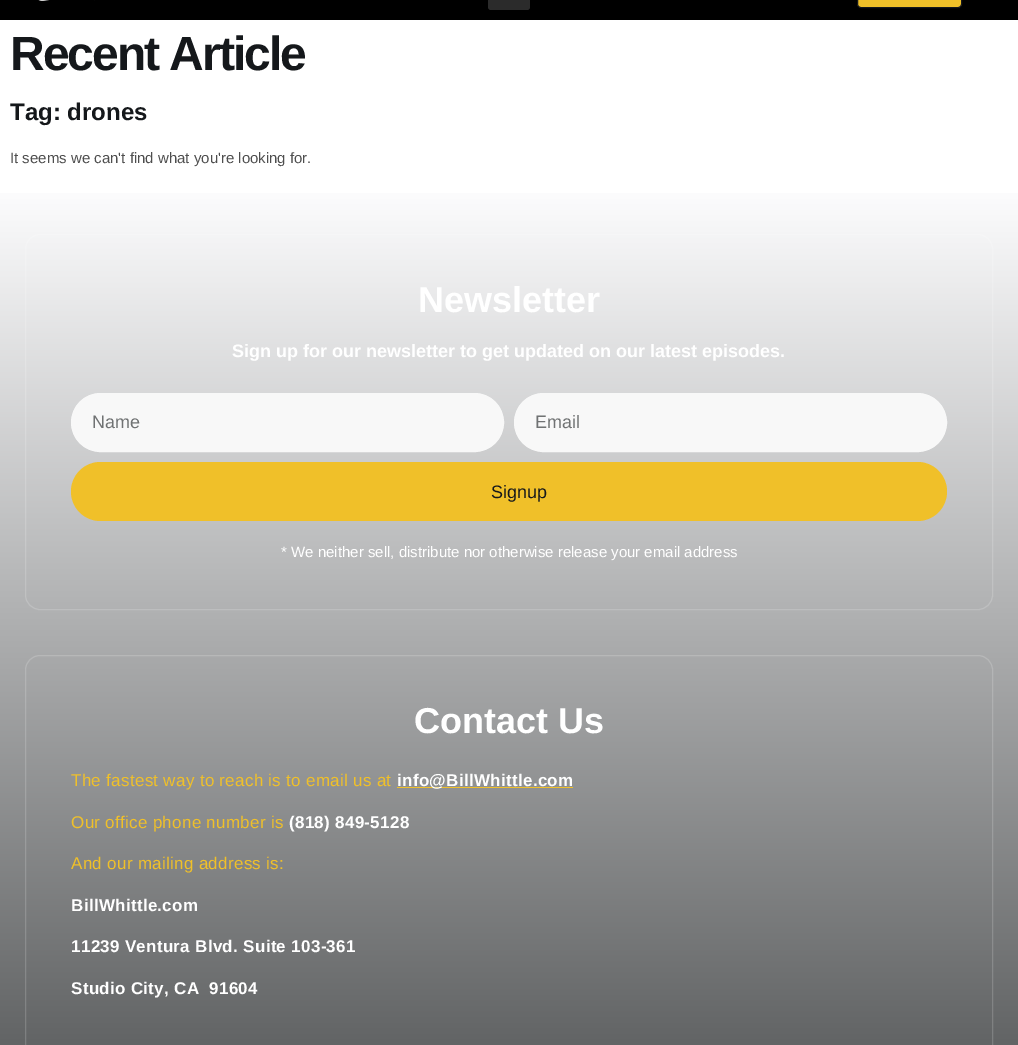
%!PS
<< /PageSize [1018 1045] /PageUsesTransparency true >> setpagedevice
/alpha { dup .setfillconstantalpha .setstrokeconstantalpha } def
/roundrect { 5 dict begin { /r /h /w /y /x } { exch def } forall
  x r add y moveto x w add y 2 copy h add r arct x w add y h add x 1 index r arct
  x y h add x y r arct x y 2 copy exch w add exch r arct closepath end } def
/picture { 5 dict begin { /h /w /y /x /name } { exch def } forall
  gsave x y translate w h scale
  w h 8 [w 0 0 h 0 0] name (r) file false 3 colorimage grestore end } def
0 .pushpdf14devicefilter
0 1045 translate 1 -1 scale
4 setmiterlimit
1 setgray
0 0 1018 1045 rectfill
0 setgray
0 0 1018 20 rectfill
(img1.rgb) 38 0 57 1 picture
0.169 setgray
488 -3 42 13 3 roundrect fill
0.941 0.753 0.161 setrgbcolor
857.5 -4.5 104 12 3.5 roundrect gsave fill grestore
0.082 0.094 0.106 setrgbcolor
stroke
/LiberationSans-Bold [48 0 0 -48 0 0] selectfont
10 70 moveto -2 0 (Recent Article) ashow
/LiberationSans-Bold [24 0 0 -24 0 0] selectfont
10 120 moveto (Tag: drones) show
/LiberationSans-Regular [15 0 0 -15 0 0] selectfont
0.306 setgray
10 163 moveto (It seems we can't find what you're looking for.) show
gsave newpath 0 193 moveto 1018 193 lineto 1018 1045 lineto 0 1045 lineto closepath clip newpath
<< /ShadingType 2 /ColorSpace /DeviceRGB /Coords [509 179 509 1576] /Extend [true true] /Function << /FunctionType 2 /Domain [0 1] /C0 [1 1 1] /C1 [0.004 0.02 0.027] /N 1 >> >> shfill grestore
0.17 alpha
1 setgray
25.5 234.5 967 375 14.5 roundrect stroke
/LiberationSans-Bold [36 0 0 -36 0 0] selectfont
1 alpha
418 312 moveto (Newsletter) show
/LiberationSans-Bold [18 0 0 -18 0 0] selectfont
232 357 moveto (Sign up for our newsletter to get updated on our latest episodes.) show
0.973 setgray
71.5 393.5 432 58 29 roundrect gsave fill grestore
stroke
/LiberationSans-Regular [18 0 0 -18 0 0] selectfont
0.439 0.447 0.451 setrgbcolor
92 428 moveto (Name) show
0.973 setgray
514.5 393.5 432 58 29 roundrect gsave fill grestore
stroke
0.439 0.447 0.451 setrgbcolor
535 428 moveto (Email) show
0.941 0.753 0.161 setrgbcolor
71 462 876 59 29.5 roundrect fill
0.082 0.094 0.106 setrgbcolor
491 498 moveto (Signup) show
/LiberationSans-Regular [15 0 0 -15 0 0] selectfont
1 setgray
281 557 moveto (* We neither sell, distribute nor otherwise release your email address) show
0.17 alpha
25.5 655.5 967 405 14.5 roundrect stroke
/LiberationSans-Bold [36 0 0 -36 0 0] selectfont
1 alpha
414 733 moveto (Contact Us) show
/LiberationSans-Regular [17 0 0 -17 0 0] selectfont
0.941 0.753 0.161 setrgbcolor
71 786 moveto 0.3 0 (The fastest way to reach is to email us at) ashow
397 787 176 1 rectfill
/LiberationSans-Bold [17 0 0 -17 0 0] selectfont
1 setgray
397 786 moveto 0.3 0 (info@BillWhittle.com) ashow
/LiberationSans-Regular [17 0 0 -17 0 0] selectfont
0.941 0.753 0.161 setrgbcolor
71 828 moveto 0.3 0 (Our office phone number is) ashow
/LiberationSans-Bold [17 0 0 -17 0 0] selectfont
1 setgray
289 828 moveto 0.3 0 (\(818\) 849-5128) ashow
/LiberationSans-Regular [17 0 0 -17 0 0] selectfont
0.941 0.753 0.161 setrgbcolor
71 869 moveto 0.3 0 (And our mailing address is:) ashow
/LiberationSans-Bold [17 0 0 -17 0 0] selectfont
1 setgray
71 911 moveto 0.3 0 (BillWhittle.com) ashow
71 952 moveto 0.3 0 (11239 Ventura Blvd. Suite 103-361) ashow
71 994 moveto 0.3 0 (Studio City, CA  91604) ashow
.poppdf14devicefilter showpage
